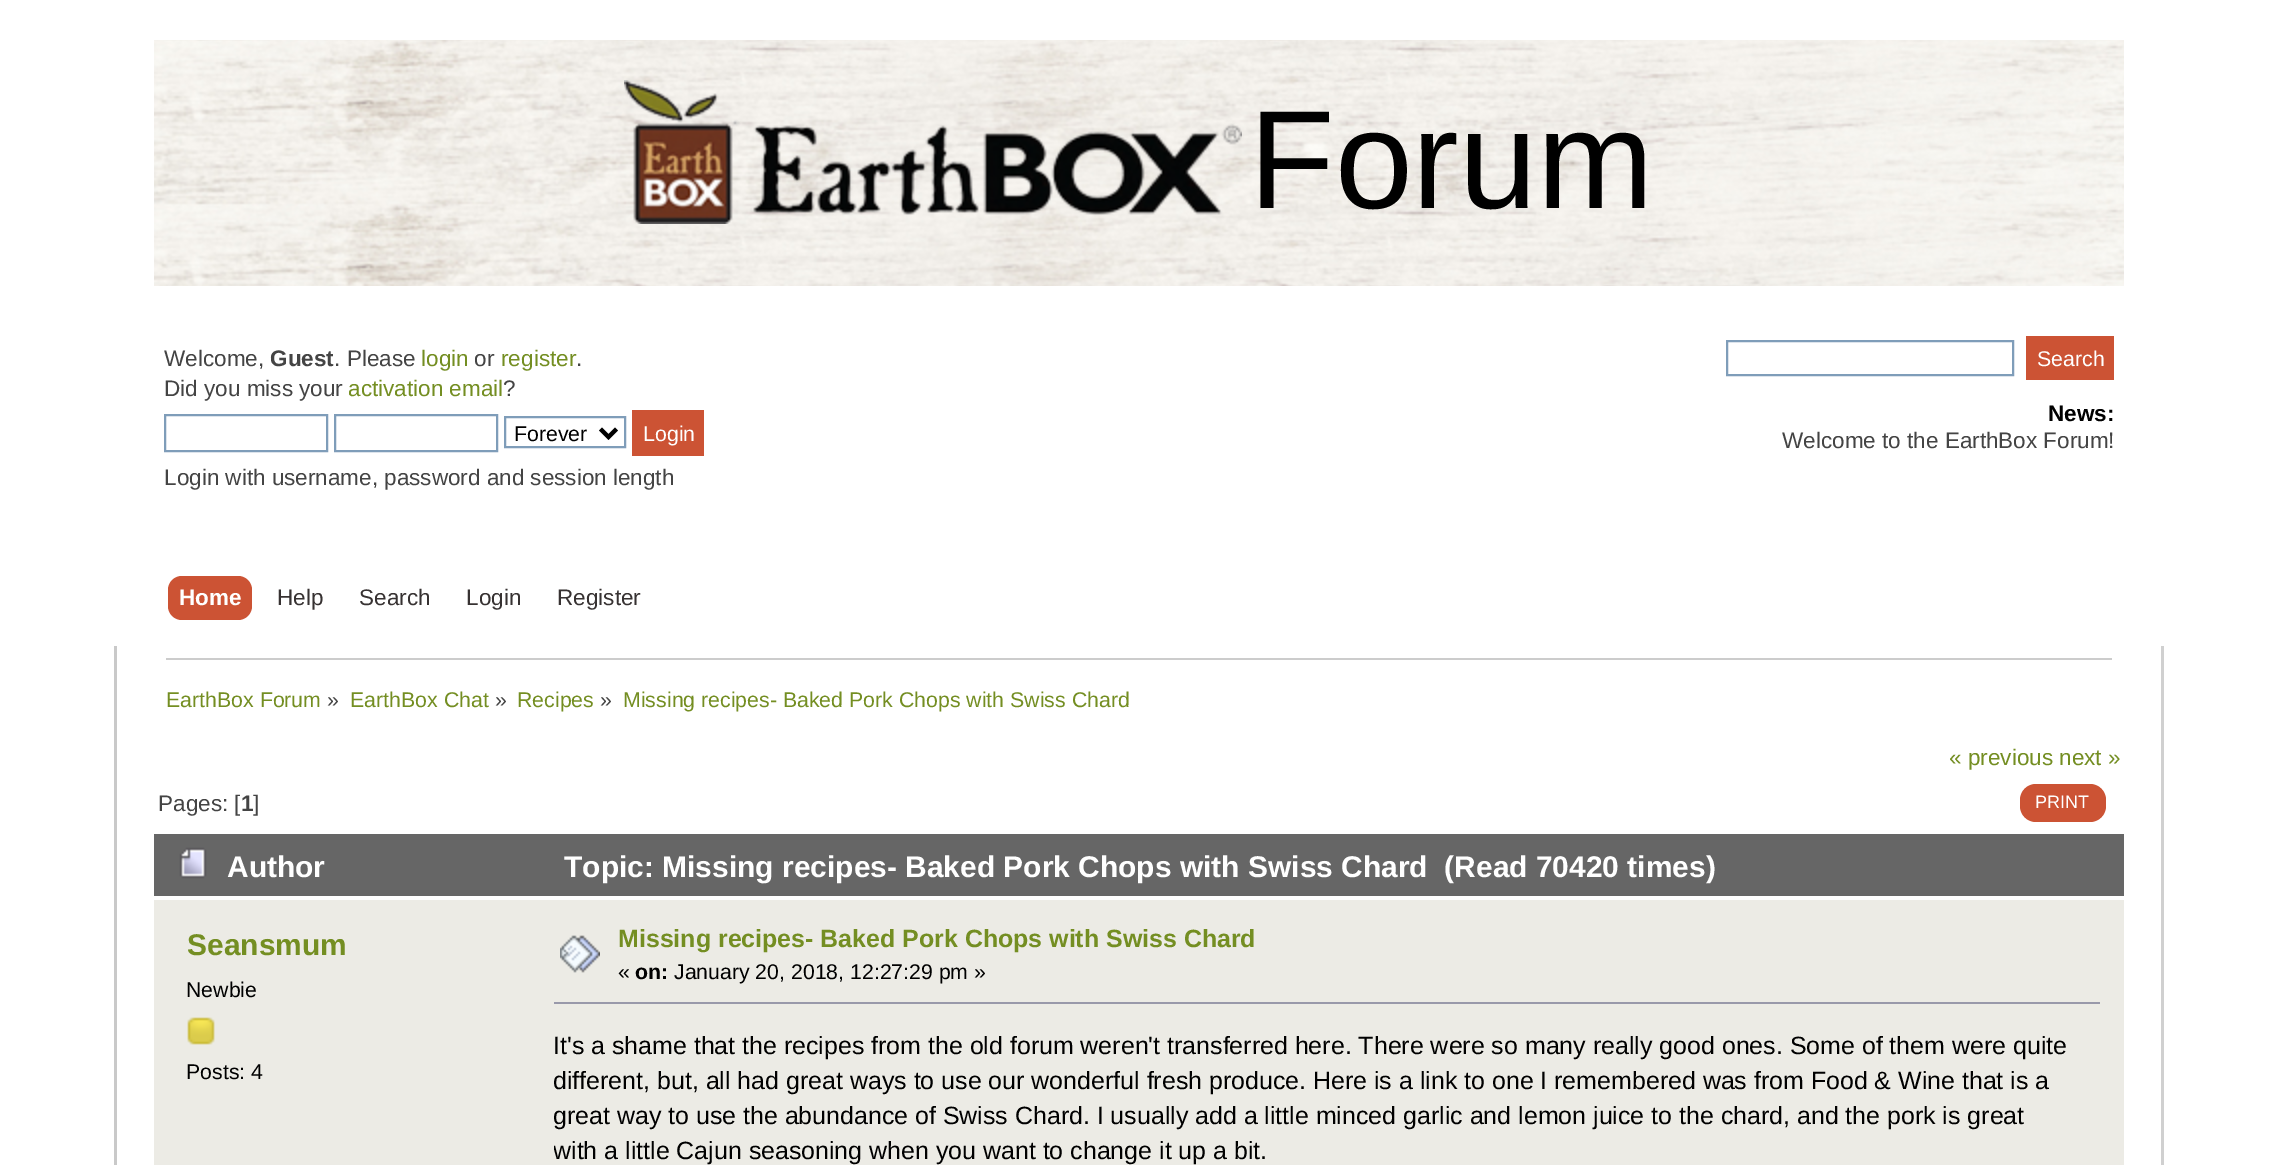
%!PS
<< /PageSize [2277 1165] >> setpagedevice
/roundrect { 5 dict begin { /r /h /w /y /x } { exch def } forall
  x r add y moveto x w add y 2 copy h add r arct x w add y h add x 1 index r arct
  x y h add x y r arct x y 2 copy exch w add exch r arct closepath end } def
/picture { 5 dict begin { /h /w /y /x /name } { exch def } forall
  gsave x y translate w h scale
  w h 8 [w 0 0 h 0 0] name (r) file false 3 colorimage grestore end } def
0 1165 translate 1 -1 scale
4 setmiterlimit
1 setgray
0 0 2277 1165 rectfill
(img1.rgb) 154 40 1970 246 picture
(img2.rgb) 624 80 618 144 picture
/LiberationSans-Regular [140 0 0 -140 0 0] selectfont
0 setgray
1249 208 moveto (Forum) show
/LiberationSans-Regular [22.5 0 0 -22.5 0 0] selectfont
0.267 setgray
164 366 moveto (Welcome,) show
/LiberationSans-Bold [22.5 0 0 -22.5 0 0] selectfont
270 366 moveto (Guest) show
/LiberationSans-Regular [22.5 0 0 -22.5 0 0] selectfont
334 366 moveto (. Please) show
0.455 0.557 0.133 setrgbcolor
421 366 moveto (login) show
0.267 setgray
474 366 moveto (or) show
0.455 0.557 0.133 setrgbcolor
501 366 moveto (register) show
0.267 setgray
576 366 moveto (.) show
164 396 moveto (Did you miss your) show
0.455 0.557 0.133 setrgbcolor
348 396 moveto (activation email) show
0.267 setgray
503 396 moveto (?) show
0.498 0.616 0.725 setrgbcolor
2 setlinewidth
165 415 162 36 rectstroke
335 415 162 36 rectstroke
505 417 120 30 rectstroke
0 setgray
4 setlinewidth
newpath 600.5 429 moveto 608.5 437 lineto 616.5 429 lineto stroke
/LiberationSans-Regular [21.3 0 0 -21.3 0 0] selectfont
514 441 moveto (Forever) show
0.8 0.325 0.204 setrgbcolor
632 410 72 46 rectfill
1 setgray
643 441 moveto (Login) show
/LiberationSans-Regular [22.5 0 0 -22.5 0 0] selectfont
0.267 setgray
164 485 moveto (Login with username, password and session length) show
0.498 0.616 0.725 setrgbcolor
2 setlinewidth
1727 341 286 34 rectstroke
0.8 0.325 0.204 setrgbcolor
2026 336 88 44 rectfill
/LiberationSans-Regular [21.3 0 0 -21.3 0 0] selectfont
1 setgray
2037 366 moveto (Search) show
/LiberationSans-Bold [22.5 0 0 -22.5 0 0] selectfont
0 setgray
2048 421 moveto (News:) show
/LiberationSans-Regular [22.5 0 0 -22.5 0 0] selectfont
0.267 setgray
1782 448 moveto (Welcome to the EarthBox Forum!) show
0.8 0.325 0.204 setrgbcolor
168 576 84 44 14 roundrect fill
/LiberationSans-Bold [22.5 0 0 -22.5 0 0] selectfont
1 setgray
179 605 moveto (Home) show
/LiberationSans-Regular [22.5 0 0 -22.5 0 0] selectfont
0.216 0.196 0.196 setrgbcolor
277 605 moveto (Help) show
359 605 moveto (Search) show
466 605 moveto (Login) show
557 605 moveto (Register) show
0.788 setgray
114 646 3 519 rectfill
0.816 setgray
2161 646 3 519 rectfill
0.8 setgray
166 658 1946 2 rectfill
/LiberationSans-Regular [21.3 0 0 -21.3 0 0] selectfont
0.455 0.557 0.133 setrgbcolor
166 707 moveto (EarthBox Forum) show
0.267 setgray
327 707 moveto (») show
0.455 0.557 0.133 setrgbcolor
350 707 moveto (EarthBox Chat) show
0.267 setgray
495 707 moveto (») show
0.455 0.557 0.133 setrgbcolor
517 707 moveto (Recipes) show
0.267 setgray
600 707 moveto (») show
0.455 0.557 0.133 setrgbcolor
623 707 moveto (Missing recipes- Baked Pork Chops with Swiss Chard) show
/LiberationSans-Regular [22.5 0 0 -22.5 0 0] selectfont
1949 765 moveto (« previous next ») show
0.267 setgray
158 811 moveto (Pages: [) show
/LiberationSans-Bold [22.5 0 0 -22.5 0 0] selectfont
241 811 moveto (1) show
/LiberationSans-Regular [22.5 0 0 -22.5 0 0] selectfont
253 811 moveto (]) show
0.8 0.325 0.204 setrgbcolor
2020 784 86 38 16 roundrect fill
/LiberationSans-Regular [18 0 0 -18 0 0] selectfont
1 setgray
2035 808 moveto (PRINT) show
0.4 setgray
154 834 1970 62 rectfill
(img3.rgb) 179 847 28 32 picture
/LiberationSans-Bold [29.95 0 0 -29.95 0 0] selectfont
1 setgray
227 877 moveto (Author) show
564 877 moveto (Topic: Missing recipes- Baked Pork Chops with Swiss Chard  \(Read 70420 times\)) show
0.925 0.922 0.898 setrgbcolor
154 900 1970 265 rectfill
0.455 0.557 0.133 setrgbcolor
187 955 moveto (Seansmum) show
/LiberationSans-Regular [21.25 0 0 -21.25 0 0] selectfont
0 setgray
186 997 moveto (Newbie) show
(img4.rgb) 187 1017 28 28 picture
186 1079 moveto (Posts: 4) show
(img5.rgb) 560 935 40 38 picture
/LiberationSans-Bold [24.95 0 0 -24.95 0 0] selectfont
0.455 0.557 0.133 setrgbcolor
618 947 moveto (Missing recipes- Baked Pork Chops with Swiss Chard) show
/LiberationSans-Regular [21.25 0 0 -21.25 0 0] selectfont
0 setgray
618 979 moveto («) show
/LiberationSans-Bold [21.25 0 0 -21.25 0 0] selectfont
635 979 moveto (on:) show
/LiberationSans-Regular [21.25 0 0 -21.25 0 0] selectfont
674 979 moveto (January 20, 2018, 12:27:29 pm ») show
0.6 0.6 0.667 setrgbcolor
554 1002 1546 2 rectfill
/LiberationSans-Regular [24.95 0 0 -24.95 0 0] selectfont
0 setgray
553 1054 moveto (It's a shame that the recipes from the old forum weren't transferred here. There were so many really good ones. Some of them were quite) show
553 1089 moveto (different, but, all had great ways to use our wonderful fresh produce. Here is a link to one I remembered was from Food & Wine that is a) show
553 1124 moveto (great way to use the abundance of Swiss Chard. I usually add a little minced garlic and lemon juice to the chard, and the pork is great) show
gsave
554 1000 1570 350 rectclip
553 1159 moveto (with a little Cajun seasoning when you want to change it up a bit.) show
grestore
showpage
